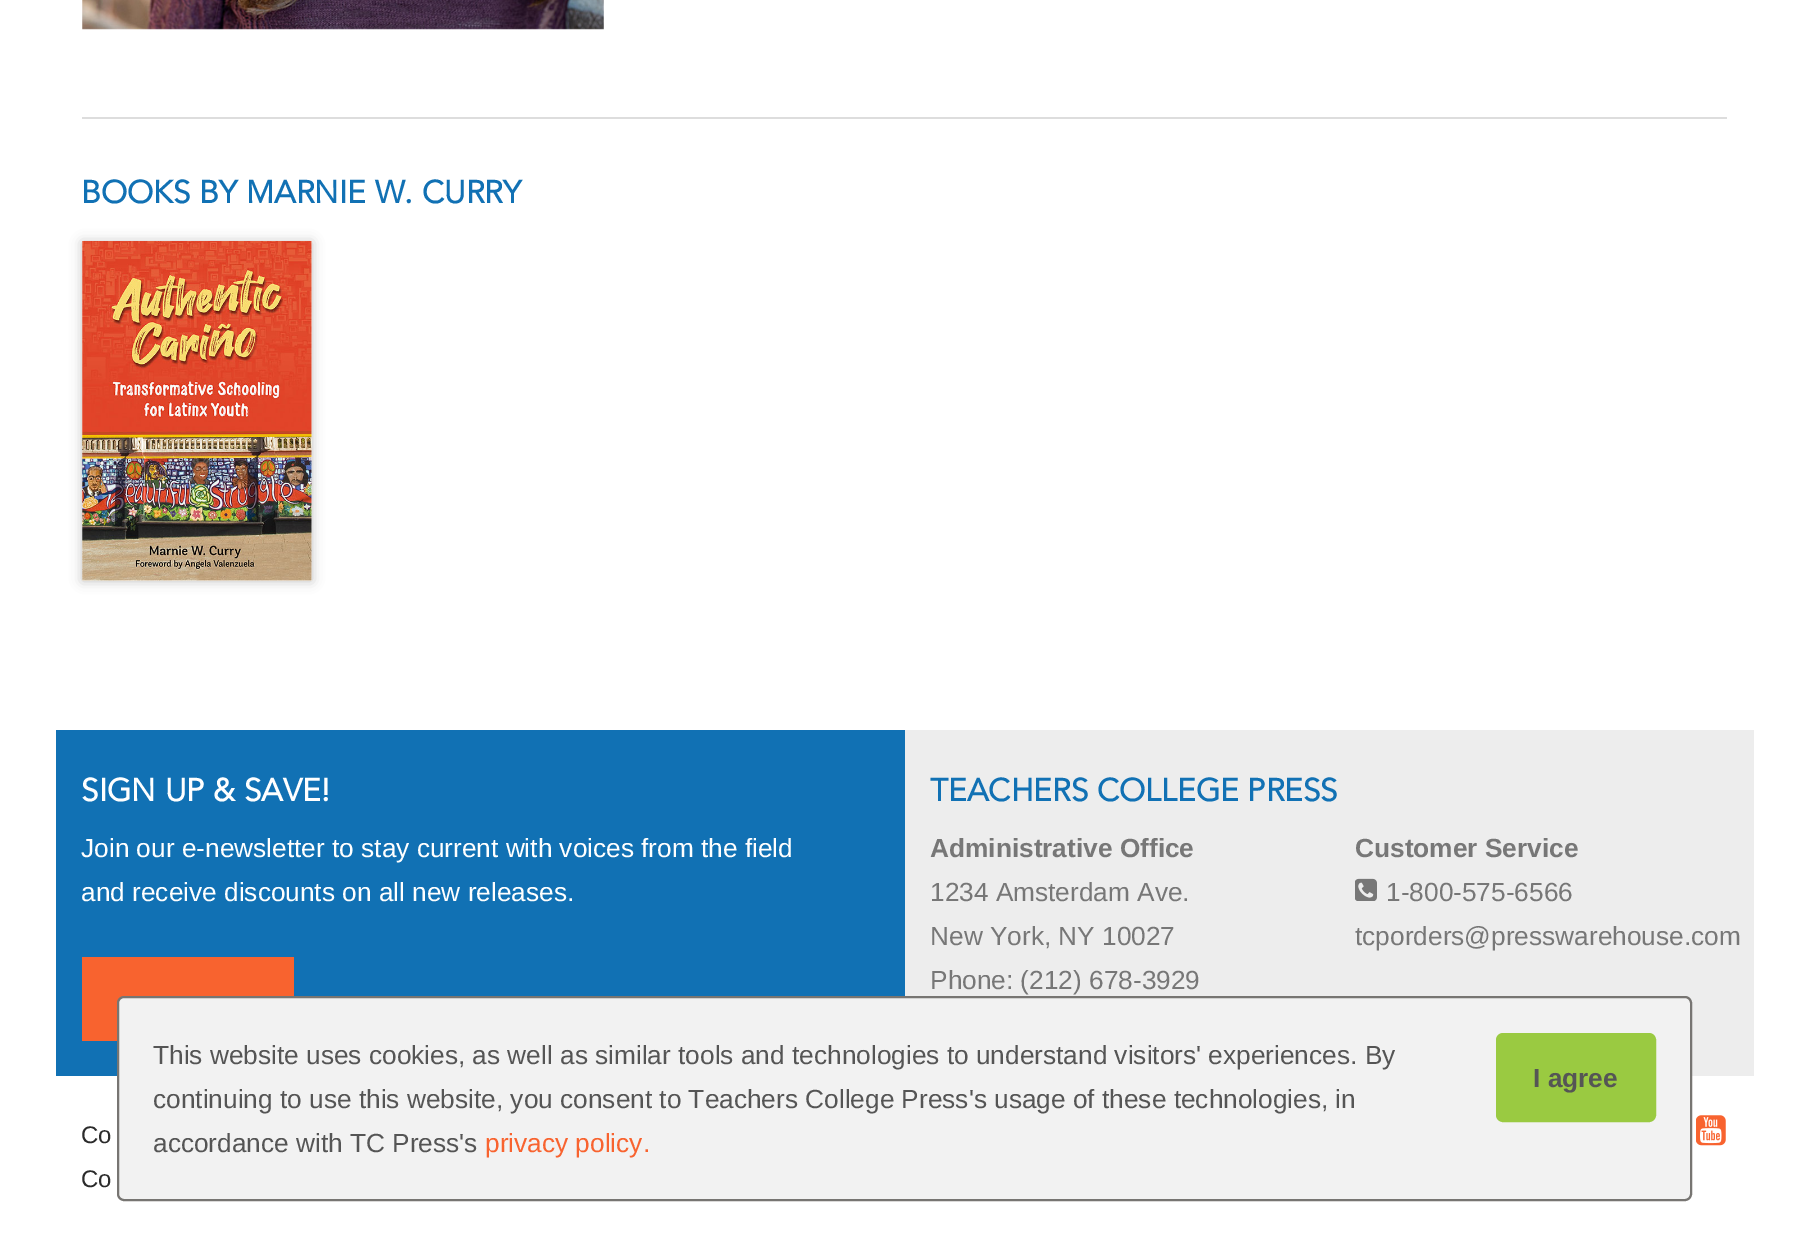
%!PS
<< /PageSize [1807 1234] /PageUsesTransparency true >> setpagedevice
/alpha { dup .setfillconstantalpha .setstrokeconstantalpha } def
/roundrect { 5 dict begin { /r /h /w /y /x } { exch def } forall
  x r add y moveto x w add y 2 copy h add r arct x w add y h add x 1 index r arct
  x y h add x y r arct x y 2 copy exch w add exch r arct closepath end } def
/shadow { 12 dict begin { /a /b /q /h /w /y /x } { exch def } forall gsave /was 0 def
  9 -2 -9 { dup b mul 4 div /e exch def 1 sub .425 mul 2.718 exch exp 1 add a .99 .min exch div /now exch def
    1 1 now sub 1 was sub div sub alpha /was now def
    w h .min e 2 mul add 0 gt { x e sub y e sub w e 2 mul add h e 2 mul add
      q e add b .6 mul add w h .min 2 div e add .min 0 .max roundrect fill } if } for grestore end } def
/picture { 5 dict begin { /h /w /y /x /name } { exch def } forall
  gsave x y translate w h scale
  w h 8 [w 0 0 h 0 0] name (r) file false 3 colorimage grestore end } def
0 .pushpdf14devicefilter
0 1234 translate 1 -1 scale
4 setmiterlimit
1 setgray
0 0 1807 1234 rectfill
(img1.rgb) 82 0 522 30 picture
0.867 setgray
82 117 1645 2 rectfill
/Avenir-Bold [31.5 0 0 -31.5 0 0] selectfont
0.067 0.443 0.706 setrgbcolor
81 203 moveto (BOOKS BY MARNIE W. CURRY) show
0.176 setgray
82 242 230 339 0 6 0.3 shadow
(img2.rgb) 82 241 230 340 picture
0.067 0.443 0.706 setrgbcolor
56 730 849 346 rectfill
1 setgray
81 801 moveto (SIGN UP & SAVE!) show
/LiberationSans-Regular [26.25 0 0 -26.25 0 0] selectfont
81 857 moveto (Join our e-newsletter to stay current with voices from the field) show
81 901 moveto (and receive discounts on all new releases.) show
0.973 0.388 0.184 setrgbcolor
82 957 212 84 rectfill
0.929 setgray
905 730 849 346 rectfill
/Avenir-Bold [31.5 0 0 -31.5 0 0] selectfont
0.067 0.443 0.706 setrgbcolor
930 801 moveto (TEACHERS COLLEGE PRESS) show
/LiberationSans-Bold [26.25 0 0 -26.25 0 0] selectfont
0.467 setgray
930 857 moveto (Administrative Office) show
/LiberationSans-Regular [26.25 0 0 -26.25 0 0] selectfont
930 901 moveto (1234 Amsterdam Ave.) show
930 945 moveto (New York, NY 10027) show
930 989 moveto (Phone: \(212\) 678-3929) show
/LiberationSans-Bold [26.25 0 0 -26.25 0 0] selectfont
1355 857 moveto (Customer Service) show
(img3.rgb) 1355 878 22 23 picture
/LiberationSans-Regular [26.25 0 0 -26.25 0 0] selectfont
1386 901 moveto (1-800-575-6566) show
1355 945 moveto (tcporders@presswarehouse.com) show
/LiberationSans-Regular [24 0 0 -24 0 0] selectfont
0.169 setgray
81 1143 moveto (Co) show
81 1187 moveto (Co) show
(img4.rgb) 1696 1115 30 31 picture
0.949 setgray
118 997 1573 203 6 roundrect gsave fill grestore
0.467 0.459 0.447 setrgbcolor
2 setlinewidth
stroke
/LiberationSans-Regular [26.25 0 0 -26.25 0 0] selectfont
0.333 setgray
153 1064 moveto (This website uses cookies, as well as similar tools and technologies to understand visitors' experiences. By) show
153 1108 moveto (continuing to use this website, you consent to Teachers College Press's usage of these technologies, in) show
153 1152 moveto (accordance with TC Press's) show
0.973 0.388 0.184 setrgbcolor
485 1152 moveto (privacy policy.) show
0.604 0.792 0.255 setrgbcolor
1497 1034 158 87 6 roundrect gsave fill grestore
stroke
/LiberationSans-Bold [26.25 0 0 -26.25 0 0] selectfont
0.333 setgray
1533 1087 moveto (I agree) show
.poppdf14devicefilter showpage
